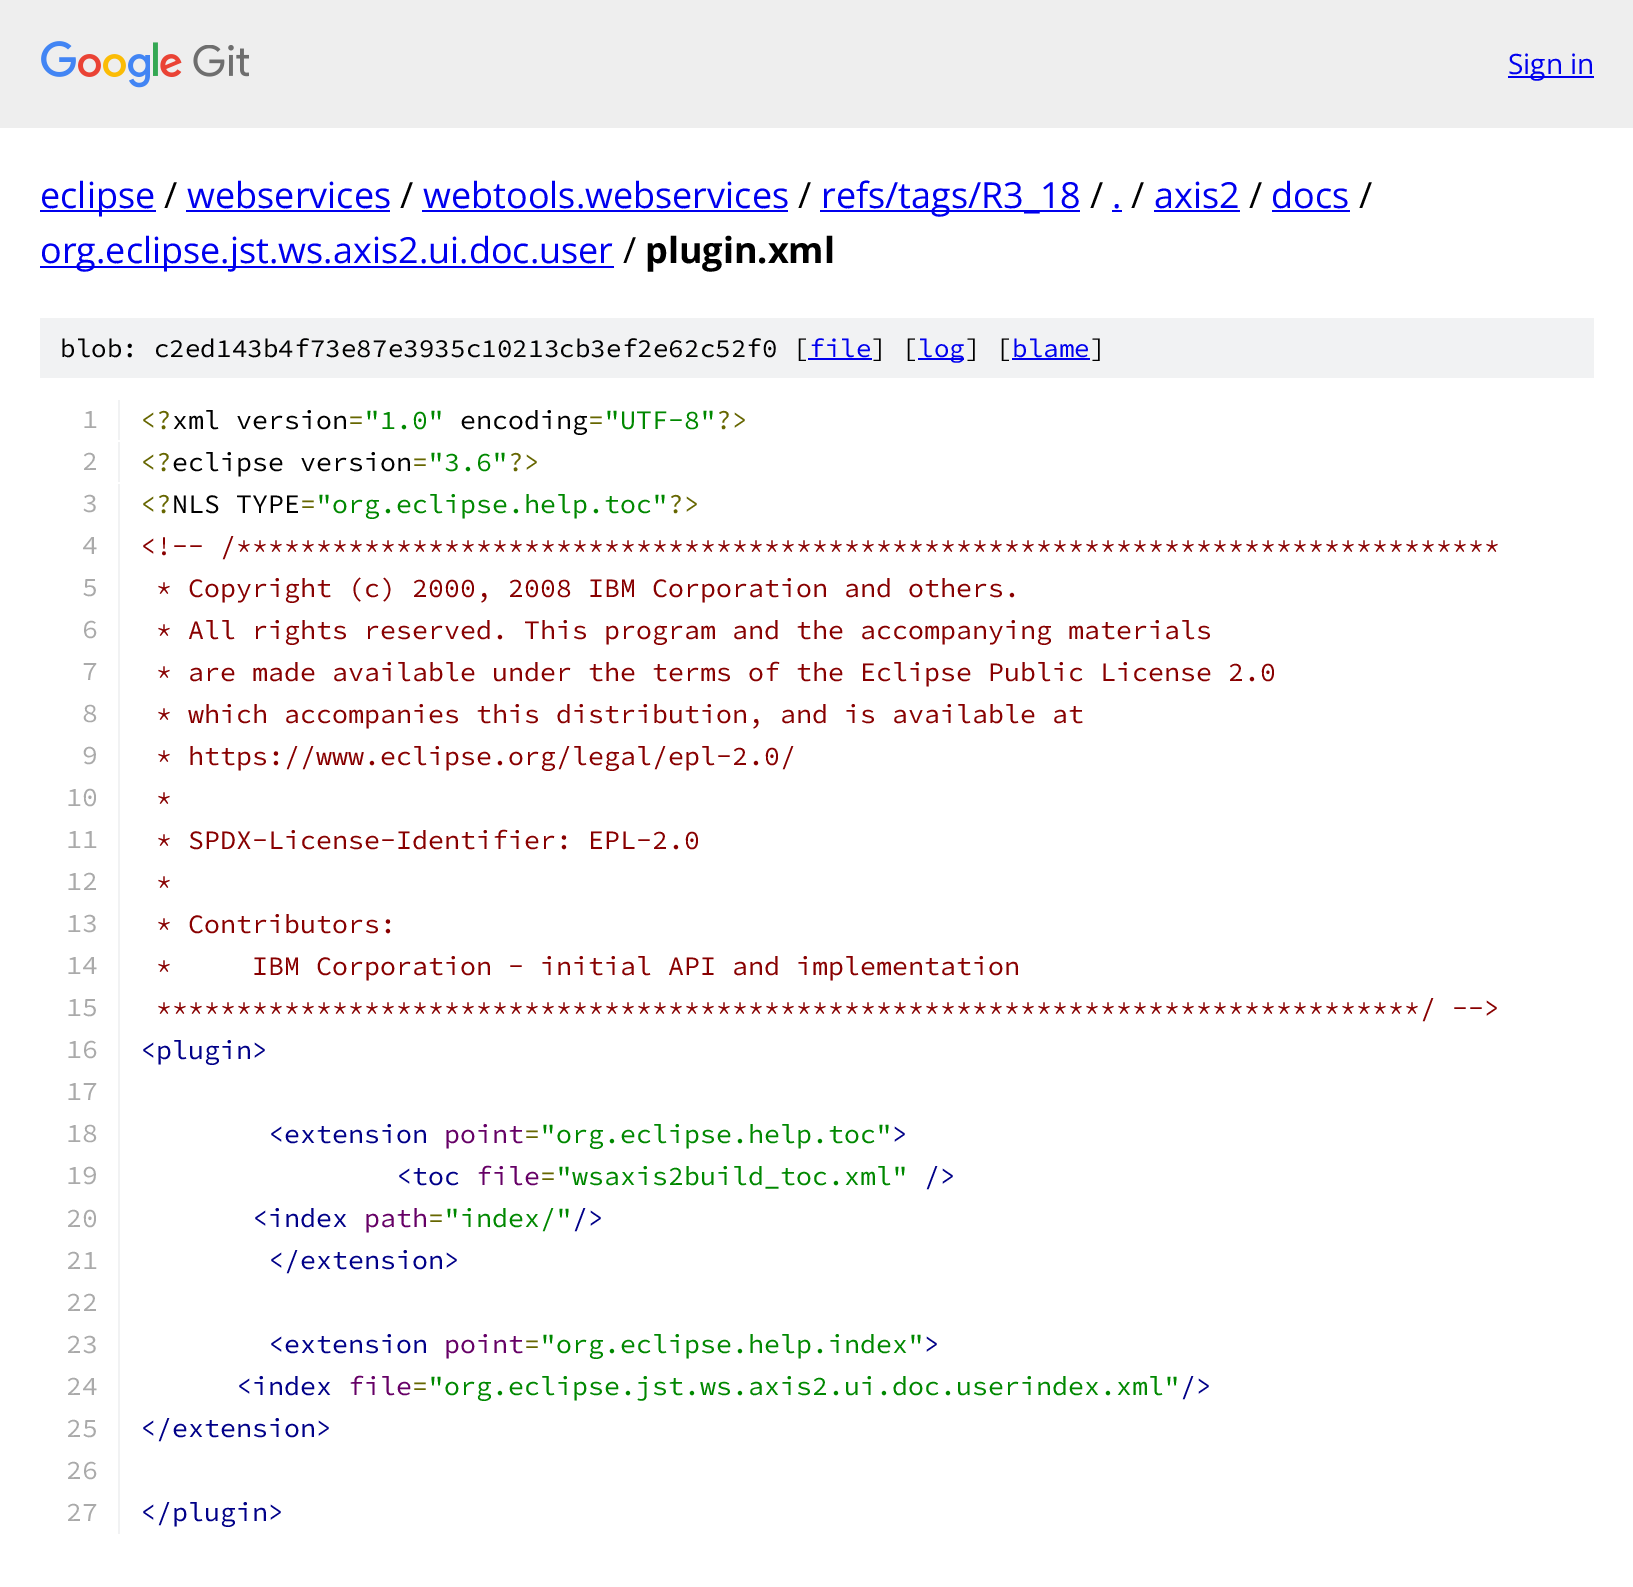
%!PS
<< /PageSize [1633 1587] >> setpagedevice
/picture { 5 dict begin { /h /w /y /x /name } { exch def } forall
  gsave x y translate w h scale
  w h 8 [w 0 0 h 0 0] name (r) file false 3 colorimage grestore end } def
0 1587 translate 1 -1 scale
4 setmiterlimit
1 setgray
0 0 1633 1587 rectfill
0.933 setgray
0 0 1633 128 rectfill
(img1.rgb) 41 41 208 47 picture
0 0 0.933 setrgbcolor
1508 76 86 2 rectfill
/OpenSans-Regular [28 0 0 -28 0 0] selectfont
1508 74 moveto (Sign in) show
40 210 116 2 rectfill
/OpenSans-Regular [36 0 0 -36 0 0] selectfont
40 208 moveto (eclipse) show
0 setgray
164 208 moveto (/) show
0 0 0.933 setrgbcolor
187 208 moveto (webservices) show
186 210 204 2 rectfill
0 setgray
400 208 moveto (/) show
0 0 0.933 setrgbcolor
423 208 moveto (webtools.webservices) show
422 210 366 2 rectfill
0 setgray
798 208 moveto (/) show
0 0 0.933 setrgbcolor
820 210 260 2 rectfill
821 208 moveto (refs/tags/R3_18) show
0 setgray
1090 208 moveto (/) show
0 0 0.933 setrgbcolor
1112 208 moveto (.) show
1112 210 10 2 rectfill
0 setgray
1131 208 moveto (/) show
0 0 0.933 setrgbcolor
1154 208 moveto (axis2) show
1154 210 86 2 rectfill
0 setgray
1249 208 moveto (/) show
0 0 0.933 setrgbcolor
1271 208 moveto (docs) show
1272 210 78 2 rectfill
0 setgray
1359 208 moveto (/) show
0 0 0.933 setrgbcolor
40 266 574 2 rectfill
40 263 moveto (org.eclipse.jst.ws.axis2.ui.doc.user) show
0 setgray
623 263 moveto (/) show
/OpenSans-Bold [36 0 0 -36 0 0] selectfont
645 263 moveto (plugin.xml) show
0.945 0.949 0.953 setrgbcolor
40 318 1554 60 rectfill
/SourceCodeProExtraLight-ExtraLight [26 0 0 -26 0 0] selectfont
0 setgray
60 357 moveto (blob: c2ed143b4f73e87e3935c10213cb3ef2e62c52f0 [) show
0 0 0.933 setrgbcolor
809 357 moveto (file) show
808 358 64 2 rectfill
0 setgray
871 357 moveto (] [) show
0 0 0.933 setrgbcolor
918 358 46 2 rectfill
918 357 moveto (log) show
0 setgray
965 357 moveto (] [) show
0 0 0.933 setrgbcolor
1012 357 moveto (blame) show
1012 358 78 2 rectfill
0 setgray
1090 357 moveto (]) show
0.945 0.949 0.953 setrgbcolor
118 400 2 40 rectfill
/SourceCodeProExtraLight-ExtraLight [26.67 0 0 -26.67 0 0] selectfont
0.667 setgray
82 428 moveto (1) show
0.4 0.4 0 setrgbcolor
140 429 moveto (<?) show
0 setgray
172 429 moveto (xml version) show
0.4 0.4 0 setrgbcolor
348 429 moveto (=) show
0 0.533 0 setrgbcolor
364 429 moveto ("1.0") show
0 setgray
460 429 moveto (encoding) show
0.4 0.4 0 setrgbcolor
588 429 moveto (=) show
0 0.533 0 setrgbcolor
604 429 moveto ("UTF-8") show
0.4 0.4 0 setrgbcolor
716 429 moveto (?>) show
0.945 0.949 0.953 setrgbcolor
118 442 2 40 rectfill
0.667 setgray
82 470 moveto (2) show
0.4 0.4 0 setrgbcolor
140 471 moveto (<?) show
0 setgray
172 471 moveto (eclipse version) show
0.4 0.4 0 setrgbcolor
412 471 moveto (=) show
0 0.533 0 setrgbcolor
428 471 moveto ("3.6") show
0.4 0.4 0 setrgbcolor
508 471 moveto (?>) show
0.945 0.949 0.953 setrgbcolor
118 484 2 1050 rectfill
0.667 setgray
82 512 moveto (3) show
0.4 0.4 0 setrgbcolor
140 513 moveto (<?) show
0 setgray
172 513 moveto (NLS TYPE) show
0.4 0.4 0 setrgbcolor
300 513 moveto (=) show
0 0.533 0 setrgbcolor
316 513 moveto ("org.eclipse.help.toc") show
0.4 0.4 0 setrgbcolor
668 513 moveto (?>) show
0.667 setgray
82 554 moveto (4) show
0.533 0 0 setrgbcolor
140 555 moveto (<!-- /*******************************************************************************) show
0.667 setgray
82 596 moveto (5) show
0.533 0 0 setrgbcolor
156 597 moveto (* Copyright \(c\) 2000, 2008 IBM Corporation and others.) show
0.667 setgray
82 638 moveto (6) show
0.533 0 0 setrgbcolor
156 639 moveto (* All rights reserved. This program and the accompanying materials) show
0.667 setgray
82 680 moveto (7) show
0.533 0 0 setrgbcolor
156 681 moveto (* are made available under the terms of the Eclipse Public License 2.0) show
0.667 setgray
82 722 moveto (8) show
0.533 0 0 setrgbcolor
156 723 moveto (* which accompanies this distribution, and is available at) show
0.667 setgray
82 764 moveto (9) show
0.533 0 0 setrgbcolor
156 765 moveto (* https://www.eclipse.org/legal/epl-2.0/) show
0.667 setgray
66 806 moveto (10) show
0.533 0 0 setrgbcolor
156 807 moveto (*) show
0.667 setgray
66 848 moveto (11) show
0.533 0 0 setrgbcolor
156 849 moveto (* SPDX-License-Identifier: EPL-2.0) show
0.667 setgray
66 890 moveto (12) show
0.533 0 0 setrgbcolor
156 891 moveto (*) show
0.667 setgray
66 932 moveto (13) show
0.533 0 0 setrgbcolor
156 933 moveto (* Contributors:) show
0.667 setgray
66 974 moveto (14) show
0.533 0 0 setrgbcolor
156 975 moveto (*     IBM Corporation - initial API and implementation) show
0.667 setgray
66 1016 moveto (15) show
0.533 0 0 setrgbcolor
156 1017 moveto (*******************************************************************************/ -->) show
0.667 setgray
66 1058 moveto (16) show
0 0 0.533 setrgbcolor
140 1059 moveto (<plugin>) show
0.667 setgray
66 1100 moveto (17) show
66 1142 moveto (18) show
0 0 0.533 setrgbcolor
268 1143 moveto (<extension) show
0.4 0 0.4 setrgbcolor
444 1143 moveto (point) show
0.4 0.4 0 setrgbcolor
524 1143 moveto (=) show
0 0.533 0 setrgbcolor
540 1143 moveto ("org.eclipse.help.toc") show
0 0 0.533 setrgbcolor
892 1143 moveto (>) show
0.667 setgray
66 1184 moveto (19) show
0 0 0.533 setrgbcolor
396 1185 moveto (<toc) show
0.4 0 0.4 setrgbcolor
476 1185 moveto (file) show
0.4 0.4 0 setrgbcolor
540 1185 moveto (=) show
0 0.533 0 setrgbcolor
556 1185 moveto ("wsaxis2build_toc.xml") show
0 0 0.533 setrgbcolor
924 1185 moveto (/>) show
0.667 setgray
66 1227 moveto (20) show
0 0 0.533 setrgbcolor
252 1227 moveto (<index) show
0.4 0 0.4 setrgbcolor
364 1227 moveto (path) show
0.4 0.4 0 setrgbcolor
428 1227 moveto (=) show
0 0.533 0 setrgbcolor
444 1227 moveto ("index/") show
0 0 0.533 setrgbcolor
572 1227 moveto (/>) show
0.667 setgray
66 1269 moveto (21) show
0 0 0.533 setrgbcolor
268 1269 moveto (</extension>) show
0.667 setgray
66 1311 moveto (22) show
66 1353 moveto (23) show
0 0 0.533 setrgbcolor
268 1353 moveto (<extension) show
0.4 0 0.4 setrgbcolor
444 1353 moveto (point) show
0.4 0.4 0 setrgbcolor
524 1353 moveto (=) show
0 0.533 0 setrgbcolor
540 1353 moveto ("org.eclipse.help.index") show
0 0 0.533 setrgbcolor
924 1353 moveto (>) show
0.667 setgray
66 1395 moveto (24) show
0 0 0.533 setrgbcolor
236 1395 moveto (<index) show
0.4 0 0.4 setrgbcolor
348 1395 moveto (file) show
0.4 0.4 0 setrgbcolor
412 1395 moveto (=) show
0 0.533 0 setrgbcolor
428 1395 moveto ("org.eclipse.jst.ws.axis2.ui.doc.userindex.xml") show
0 0 0.533 setrgbcolor
1180 1395 moveto (/>) show
0.667 setgray
66 1437 moveto (25) show
0 0 0.533 setrgbcolor
140 1437 moveto (</extension>) show
0.667 setgray
66 1479 moveto (26) show
66 1521 moveto (27) show
0 0 0.533 setrgbcolor
140 1521 moveto (</plugin>) show
showpage
